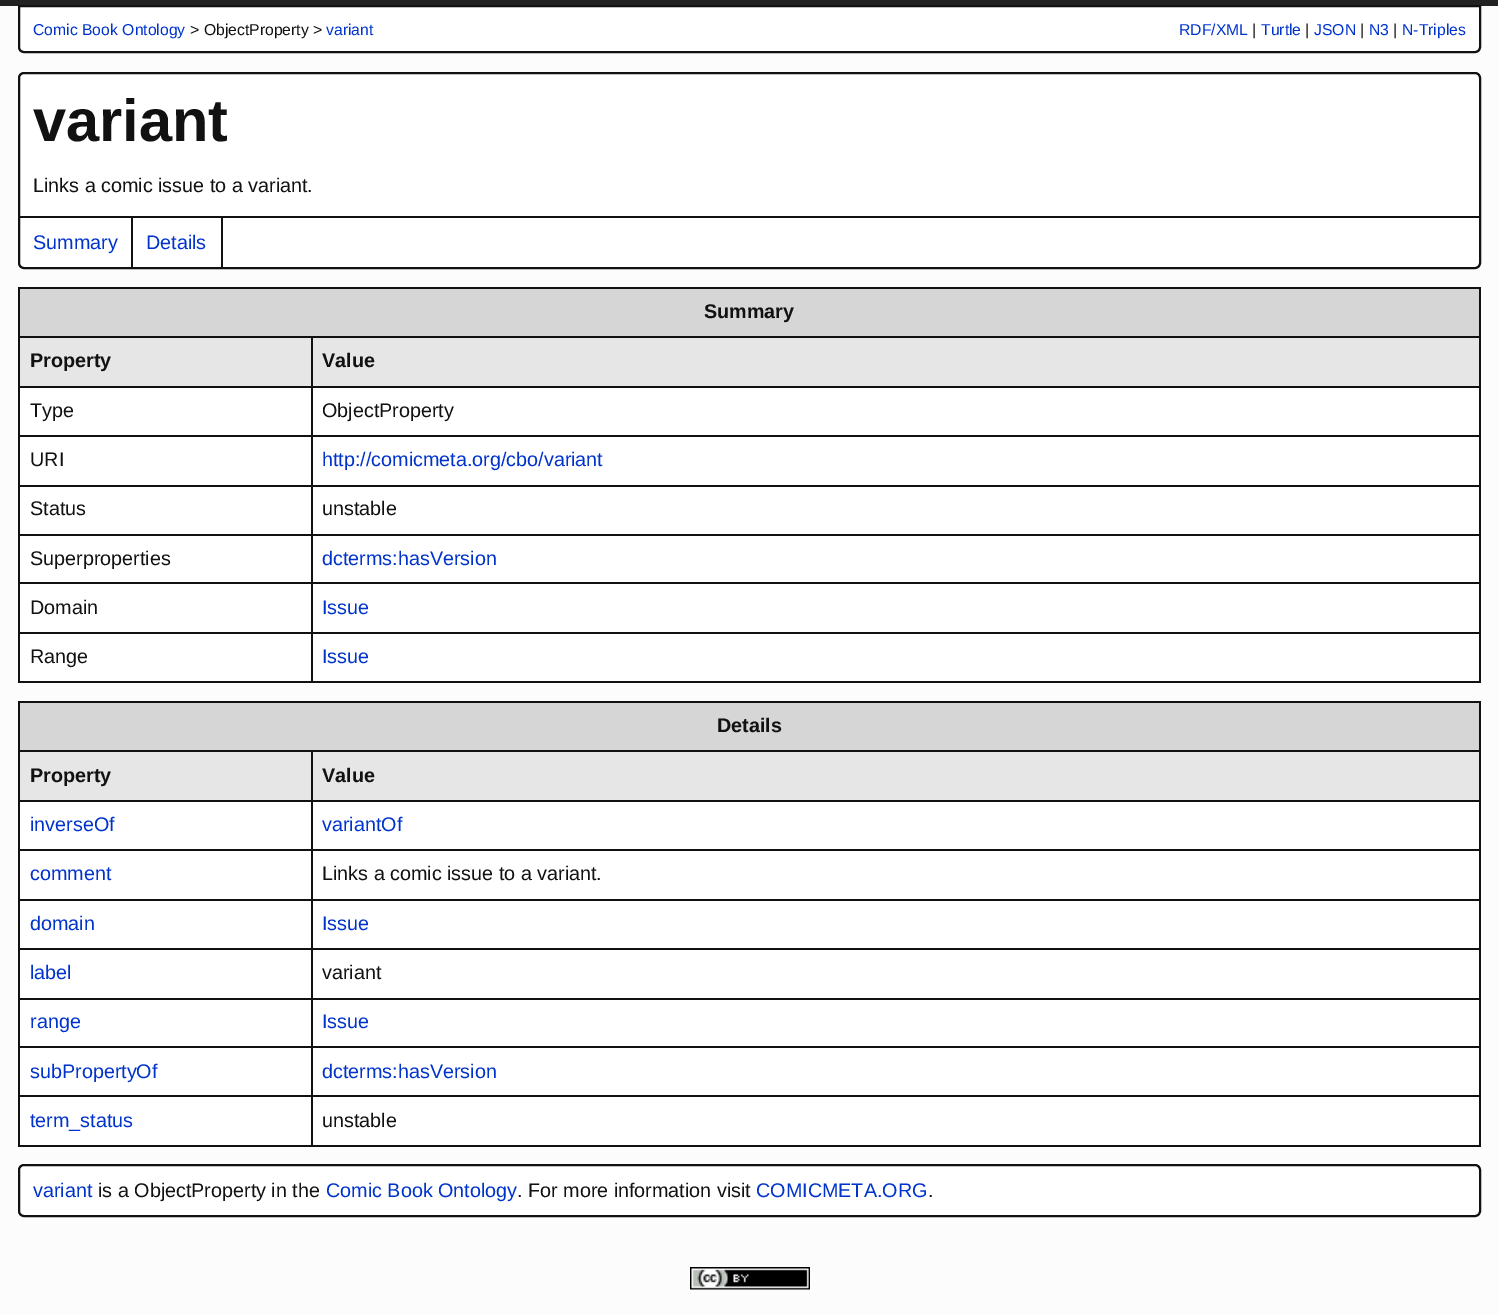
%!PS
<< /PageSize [1498 1315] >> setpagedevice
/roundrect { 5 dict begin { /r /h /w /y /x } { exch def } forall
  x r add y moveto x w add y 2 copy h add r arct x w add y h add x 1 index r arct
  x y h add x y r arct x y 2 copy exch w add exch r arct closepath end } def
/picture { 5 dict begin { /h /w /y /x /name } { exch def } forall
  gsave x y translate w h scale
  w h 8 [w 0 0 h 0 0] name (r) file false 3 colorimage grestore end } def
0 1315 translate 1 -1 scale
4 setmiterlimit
0.988 setgray
0 0 1498 1315 rectfill
0.133 setgray
0 0 1498 6 rectfill
1 setgray
newpath 19 6 moveto 1480 6 lineto 1480 47 lineto 1480 50 1478 52 1475 52 curveto 24 52 lineto 21 52 19 50 19 47 curveto closepath gsave fill grestore
0.067 setgray
2 setlinewidth
stroke
/LiberationSans-Regular [15.75 0 0 -15.75 0 0] selectfont
0 0.2 0.8 setrgbcolor
33 35 moveto (Comic Book Ontology) show
0.067 setgray
190 35 moveto (> ObjectProperty >) show
0 0.2 0.8 setrgbcolor
326 35 moveto (variant) show
1179 35 moveto (RDF/XML) show
0.067 setgray
1252 35 moveto (|) show
0 0.2 0.8 setrgbcolor
1261 35 moveto (Turtle) show
0.067 setgray
1305 35 moveto (|) show
0 0.2 0.8 setrgbcolor
1314 35 moveto (JSON) show
0.067 setgray
1360 35 moveto (|) show
0 0.2 0.8 setrgbcolor
1369 35 moveto (N3) show
0.067 setgray
1393 35 moveto (|) show
0 0.2 0.8 setrgbcolor
1402 35 moveto (N-Triples) show
1 setgray
19 73 1461 195 5 roundrect gsave fill grestore
0.067 setgray
stroke
/LiberationSans-Bold [59.5 0 0 -59.5 0 0] selectfont
33 141 moveto (variant) show
/LiberationSans-Regular [19.75 0 0 -19.75 0 0] selectfont
33 192 moveto (Links a comic issue to a variant.) show
20 216 1459 2 rectfill
131 218 2 49 rectfill
0 0.2 0.8 setrgbcolor
33 249 moveto (Summary) show
0.067 setgray
221 218 2 49 rectfill
0 0.2 0.8 setrgbcolor
146 249 moveto (Details) show
1 setgray
20 388 1459 293 rectfill
0.839 setgray
20 289 1459 47 rectfill
0.067 setgray
18 287 1463 2 rectfill
1479 287 2 49 rectfill
18 287 2 49 rectfill
/LiberationSans-Bold [19.75 0 0 -19.75 0 0] selectfont
704 318 moveto (Summary) show
18 336 1463 2 rectfill
1479 336 2 51 rectfill
18 336 2 51 rectfill
0.902 setgray
20 338 291 48 rectfill
0.067 setgray
30 367 moveto (Property) show
0.902 setgray
313 338 1166 48 rectfill
0.067 setgray
311 386 1170 2 rectfill
311 435 1170 2 rectfill
311 485 1170 2 rectfill
311 534 1170 2 rectfill
311 582 1170 2 rectfill
311 632 1170 2 rectfill
1479 632 2 51 rectfill
311 681 1170 2 rectfill
311 632 2 51 rectfill
18 632 294 2 rectfill
311 582 2 51 rectfill
18 582 294 2 rectfill
311 534 2 50 rectfill
18 534 294 2 rectfill
311 485 2 51 rectfill
18 485 294 2 rectfill
311 435 2 51 rectfill
18 435 294 2 rectfill
311 386 2 51 rectfill
18 386 294 2 rectfill
311 336 2 51 rectfill
322 367 moveto (Value) show
18 681 294 2 rectfill
18 632 2 51 rectfill
18 582 2 51 rectfill
18 534 2 50 rectfill
18 485 2 51 rectfill
18 435 2 51 rectfill
18 386 2 51 rectfill
/LiberationSans-Regular [19.75 0 0 -19.75 0 0] selectfont
30 417 moveto (Type) show
1479 582 2 51 rectfill
1479 534 2 50 rectfill
1479 485 2 51 rectfill
1479 435 2 51 rectfill
1479 386 2 51 rectfill
322 417 moveto (ObjectProperty) show
30 466 moveto (URI) show
0 0.2 0.8 setrgbcolor
322 466 moveto (http://comicmeta.org/cbo/variant) show
0.067 setgray
30 515 moveto (Status) show
322 515 moveto (unstable) show
30 565 moveto (Superproperties) show
0 0.2 0.8 setrgbcolor
322 565 moveto (dcterms:hasVersion) show
0.067 setgray
30 614 moveto (Domain) show
0 0.2 0.8 setrgbcolor
322 614 moveto (Issue) show
0.067 setgray
30 663 moveto (Range) show
0 0.2 0.8 setrgbcolor
322 663 moveto (Issue) show
1 setgray
18 701 1463 445 6 roundrect fill
0.839 setgray
20 703 1459 47 rectfill
0.067 setgray
18 701 1463 2 rectfill
1479 701 2 49 rectfill
18 701 2 49 rectfill
/LiberationSans-Bold [19.75 0 0 -19.75 0 0] selectfont
717 732 moveto (Details) show
18 750 1463 2 rectfill
1479 750 2 51 rectfill
18 750 2 51 rectfill
0.902 setgray
20 752 291 48 rectfill
0.067 setgray
30 782 moveto (Property) show
0.902 setgray
313 752 1166 48 rectfill
0.067 setgray
311 800 1170 2 rectfill
311 849 1170 2 rectfill
311 899 1170 2 rectfill
311 948 1170 2 rectfill
311 998 1170 2 rectfill
311 1046 1170 2 rectfill
311 1095 1170 2 rectfill
1479 1095 2 51 rectfill
311 1145 1170 2 rectfill
311 1095 2 51 rectfill
18 1095 294 2 rectfill
311 1046 2 51 rectfill
18 1046 294 2 rectfill
311 998 2 49 rectfill
18 998 294 2 rectfill
311 948 2 51 rectfill
18 948 294 2 rectfill
311 899 2 51 rectfill
18 899 294 2 rectfill
311 849 2 51 rectfill
18 849 294 2 rectfill
311 800 2 51 rectfill
18 800 294 2 rectfill
311 750 2 51 rectfill
322 782 moveto (Value) show
18 1145 294 2 rectfill
18 1095 2 51 rectfill
18 1046 2 51 rectfill
18 998 2 49 rectfill
18 948 2 51 rectfill
18 899 2 51 rectfill
18 849 2 51 rectfill
18 800 2 51 rectfill
/LiberationSans-Regular [19.75 0 0 -19.75 0 0] selectfont
0 0.2 0.8 setrgbcolor
30 831 moveto (inverseOf) show
0.067 setgray
1479 1046 2 51 rectfill
1479 998 2 49 rectfill
1479 948 2 51 rectfill
1479 899 2 51 rectfill
1479 849 2 51 rectfill
1479 800 2 51 rectfill
0 0.2 0.8 setrgbcolor
322 831 moveto (variantOf) show
30 880 moveto (comment) show
0.067 setgray
322 880 moveto (Links a comic issue to a variant.) show
0 0.2 0.8 setrgbcolor
30 930 moveto (domain) show
322 930 moveto (Issue) show
30 979 moveto (label) show
0.067 setgray
322 979 moveto (variant) show
0 0.2 0.8 setrgbcolor
30 1028 moveto (range) show
322 1028 moveto (Issue) show
30 1078 moveto (subPropertyOf) show
322 1078 moveto (dcterms:hasVersion) show
30 1127 moveto (term_status) show
0.067 setgray
322 1127 moveto (unstable) show
1 setgray
19 1165 1461 51 5 roundrect gsave fill grestore
0.067 setgray
stroke
0 0.2 0.8 setrgbcolor
33 1197 moveto (variant) show
0.067 setgray
98 1197 moveto (is a ObjectProperty in the) show
0 0.2 0.8 setrgbcolor
326 1197 moveto (Comic Book Ontology) show
0.067 setgray
517 1197 moveto (. For more information visit) show
0 0.2 0.8 setrgbcolor
756 1197 moveto (COMICMETA.ORG) show
0.067 setgray
928 1197 moveto (.) show
(img1.rgb) 690 1267 120 23 picture
showpage
